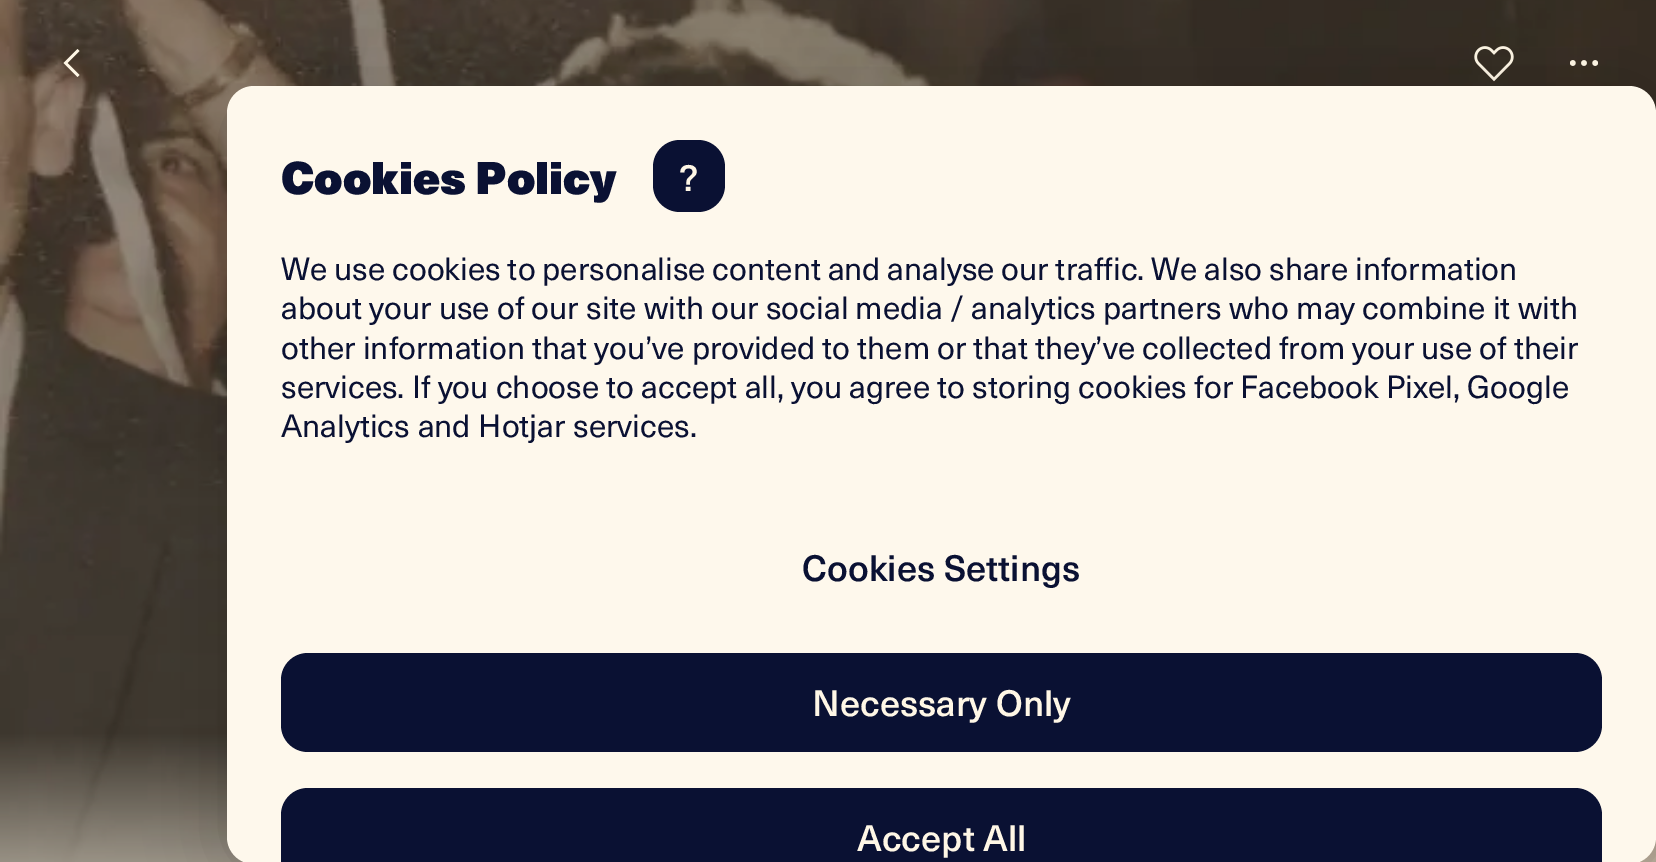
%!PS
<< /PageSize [1656 862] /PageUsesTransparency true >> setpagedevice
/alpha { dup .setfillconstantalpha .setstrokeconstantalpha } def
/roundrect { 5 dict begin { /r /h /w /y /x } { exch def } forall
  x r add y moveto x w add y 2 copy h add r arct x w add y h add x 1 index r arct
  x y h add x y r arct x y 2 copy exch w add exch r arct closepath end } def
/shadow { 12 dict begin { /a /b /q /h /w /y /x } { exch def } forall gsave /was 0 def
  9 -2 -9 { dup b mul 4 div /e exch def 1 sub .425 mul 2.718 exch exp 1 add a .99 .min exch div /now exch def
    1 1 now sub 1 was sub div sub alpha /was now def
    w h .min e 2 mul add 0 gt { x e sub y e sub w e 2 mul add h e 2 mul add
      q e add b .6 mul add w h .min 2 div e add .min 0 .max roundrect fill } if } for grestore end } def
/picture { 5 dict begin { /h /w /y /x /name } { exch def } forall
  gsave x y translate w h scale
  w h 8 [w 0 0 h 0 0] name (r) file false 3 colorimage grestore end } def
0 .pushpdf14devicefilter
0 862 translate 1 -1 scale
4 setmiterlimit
1 setgray
0 0 1656 862 rectfill
(img1.rgb) 0 0 1656 862 picture
1 0.969 0.902 setrgbcolor
newpath 63.5 63 moveto 77.5 49 lineto 79.5 51 lineto 67.5 63 lineto 79.5 75 lineto 77.5 77 lineto closepath fill
(img2.rgb) 1474 46 40 36 picture
newpath 1572.8 63 2.8 0 360 arc closepath fill
newpath 1584 63 2.8 0 360 arc closepath fill
newpath 1595.2 63 2.8 0 360 arc closepath fill
0 setgray
227 95 1429 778 27 38 0.16 shadow
0.996 0.973 0.925 setrgbcolor
227 86 1429 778 27 roundrect fill
/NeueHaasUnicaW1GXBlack-Black [45 0 0 -45 0 0] selectfont
0.039 0.067 0.2 setrgbcolor
281 194 moveto -1 0 32 (Cookies Policy) widthshow
653 140 72 72 27 roundrect fill
/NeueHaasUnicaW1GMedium-Medium [36 0 0 -36 0 0] selectfont
1 0.969 0.902 setrgbcolor
679 191 moveto (?) show
/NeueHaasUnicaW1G-Regular [31.5 0 0 -31.5 0 0] selectfont
0.039 0.067 0.2 setrgbcolor
281 280 moveto -0.4 0 32 (We use cookies to personalise content and analyse our traffic. We also share information) widthshow
281 319 moveto (about your use of our site with our social media / analytics partners who may combine it with) show
281 359 moveto -0.2 0 32 (other information that you’ve provided to them or that they’ve collected from your use of their) widthshow
281 398 moveto (services. If you choose to accept all, you agree to storing cookies for Facebook Pixel, Google) show
281 437 moveto 0.5 0 32 (Analytics and Hotjar services.) widthshow
/NeueHaasUnicaW1GMedium-Medium [36 0 0 -36 0 0] selectfont
802 581 moveto (Cookies Settings) show
281 653 1321 99 27 roundrect fill
1 0.969 0.902 setrgbcolor
812 716 moveto 1 0 32 (Necessary Only) widthshow
0.039 0.067 0.2 setrgbcolor
281 788 1321 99 27 roundrect fill
1 0.969 0.902 setrgbcolor
857 851 moveto (Accept All) show
.poppdf14devicefilter showpage
